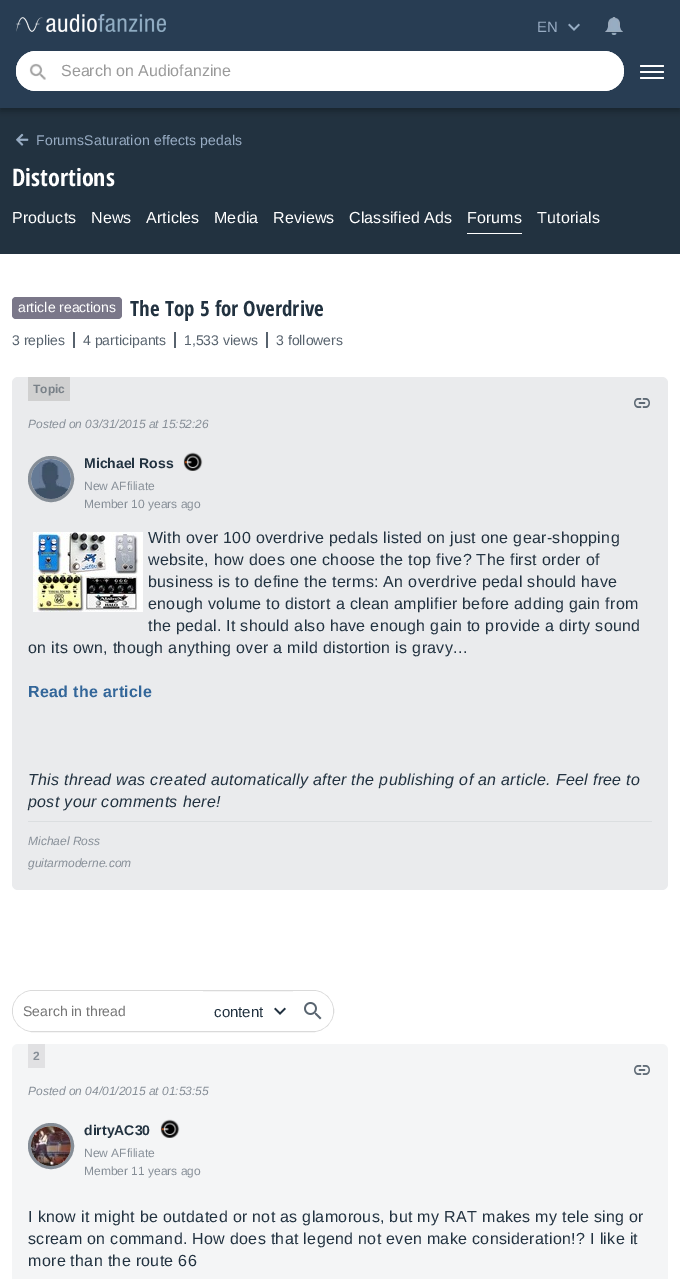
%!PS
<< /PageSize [680 1279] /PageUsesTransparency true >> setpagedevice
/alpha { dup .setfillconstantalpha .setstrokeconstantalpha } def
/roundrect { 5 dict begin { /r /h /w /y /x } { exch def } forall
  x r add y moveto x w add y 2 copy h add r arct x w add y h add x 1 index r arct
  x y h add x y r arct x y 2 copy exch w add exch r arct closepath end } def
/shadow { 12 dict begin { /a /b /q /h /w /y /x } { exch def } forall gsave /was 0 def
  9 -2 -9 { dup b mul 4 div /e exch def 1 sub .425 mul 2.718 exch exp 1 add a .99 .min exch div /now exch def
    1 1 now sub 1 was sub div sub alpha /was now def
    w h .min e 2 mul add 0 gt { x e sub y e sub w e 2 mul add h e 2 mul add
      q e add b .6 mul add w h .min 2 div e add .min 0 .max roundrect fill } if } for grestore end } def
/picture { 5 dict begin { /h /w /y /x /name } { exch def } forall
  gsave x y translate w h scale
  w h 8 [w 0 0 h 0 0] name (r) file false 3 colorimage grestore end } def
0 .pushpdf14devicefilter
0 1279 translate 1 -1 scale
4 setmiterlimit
1 setgray
0 0 680 1279 rectfill
0.133 0.196 0.251 setrgbcolor
0 108 680 146 rectfill
0 setgray
0 3 680 108 0 3.5 0.3 shadow
0.157 0.239 0.325 setrgbcolor
0 0 680 108 rectfill
(img1.rgb) 16 14 150 18 picture
(img2.rgb) 605 17 18 18 picture
(img3.rgb) 568 23 12 8 picture
/LiberationSans-Regular [15 0 0 -15 0 0] selectfont
0.596 0.675 0.765 setrgbcolor
537 32 moveto (EN) show
1 setgray
16 51 608 40 20 roundrect fill
newpath 36 51 moveto 604 51 lineto 615 51 624 60 624 71 curveto 624 82 615 91 604 91 curveto 36 91 lineto 25 91 16 82 16 71 curveto 16 60 25 51 36 51 curveto closepath 36 52 moveto 604 52 lineto 615 52 624 61 624 71 curveto 624 81 615 90 604 90 curveto 36 90 lineto 26 90 17 81 17 71 curveto 17 61 26 52 36 52 curveto closepath eofill
(img4.rgb) 29 63 17 17 picture
/LiberationSans-Regular [16 0 0 -16 0 0] selectfont
0.6 setgray
61 76 moveto (Search on Audiofanzine) show
1 setgray
640 77 24 2 1 roundrect fill
640 65 24 2 1 roundrect fill
640 71 24 2 1 roundrect fill
(img5.rgb) 16 133 13 13 picture
/LiberationSans-Regular [14 0 0 -14 0 0] selectfont
0.596 0.675 0.765 setrgbcolor
36 145 moveto 0.15 0 (ForumsSaturation effects pedals) ashow
/OpenSansCondensed-Bold [24 0 0 -24 0 0] selectfont
1 setgray
12 186 moveto (Distortions) show
/LiberationSans-Regular [16 0 0 -16 0 0] selectfont
12 223 moveto 0.15 0 (Products) ashow
91 223 moveto 0.15 0 (News) ashow
146 223 moveto 0.15 0 (Articles) ashow
214 223 moveto 0.15 0 (Media) ashow
273 223 moveto 0.15 0 (Reviews) ashow
349 223 moveto 0.15 0 (Classified Ads) ashow
467 233 55 1 rectfill
467 223 moveto 0.15 0 (Forums) ashow
537 223 moveto 0.15 0 (Tutorials) ashow
0.478 0.467 0.537 setrgbcolor
12 297 110 22 4 roundrect fill
/LiberationSans-Regular [14 0 0 -14 0 0] selectfont
1 setgray
18 312 moveto (article reactions) show
/OpenSansCondensed-Bold [21 0 0 -21 0 0] selectfont
0.133 0.196 0.251 setrgbcolor
130 316 moveto (The Top 5 for Overdrive) show
0.341 0.384 0.427 setrgbcolor
73 332 2 16 rectfill
/LiberationSans-Regular [14 0 0 -14 0 0] selectfont
12 345 moveto (3 replies) show
174 332 2 16 rectfill
83 345 moveto (4 participants) show
266 332 2 16 rectfill
184 345 moveto (1,533 views) show
276 345 moveto (3 followers) show
0.918 0.922 0.929 setrgbcolor
12 377 656 513 6 roundrect fill
0.816 setgray
28 377 42 24 rectfill
/LiberationSans-Bold [12 0 0 -12 0 0] selectfont
0.475 0.506 0.533 setrgbcolor
33 393 moveto (Topic) show
(img6.rgb) 634 398 16 10 picture
/LiberationSans-Italic [12 0 0 -12 0 0] selectfont
0.525 0.557 0.592 setrgbcolor
28 428 moveto (Posted on 03/31/2015 at 15:52:26) show
0.522 0.553 0.588 setrgbcolor
3 setlinewidth
newpath 51 479 21.5 0 360 arc closepath stroke
(img7.rgb) 31 459 40 40 picture
/LiberationSans-Bold [14 0 0 -14 0 0] selectfont
0.133 0.196 0.251 setrgbcolor
84 468 moveto (Michael Ross) show
(img8.rgb) 183 452 20 19 picture
/LiberationSans-Regular [12 0 0 -12 0 0] selectfont
0.525 0.557 0.592 setrgbcolor
84 490 moveto (New AFfiliate) show
84 508 moveto (Member 10 years ago) show
(img9.rgb) 33 532 110 80 picture
/LiberationSans-Regular [16 0 0 -16 0 0] selectfont
0.133 0.196 0.251 setrgbcolor
148 543 moveto 0.32 0 (With over 100 overdrive pedals listed on just one gear-shopping) ashow
148 565 moveto 0.32 0 (website, how does one choose the top five? The first order of) ashow
148 587 moveto 0.32 0 (business is to define the terms: An overdrive pedal should have) ashow
148 609 moveto 0.32 0 (enough volume to distort a clean amplifier before adding gain from) ashow
148 631 moveto 0.32 0 (the pedal. It should also have enough gain to provide a dirty sound) ashow
28 653 moveto 0.32 0 (on its own, though anything over a mild distortion is gravy...) ashow
/LiberationSans-Bold [16 0 0 -16 0 0] selectfont
0.2 0.4 0.6 setrgbcolor
28 697 moveto 0.32 0 (Read the article) ashow
/LiberationSans-Italic [16 0 0 -16 0 0] selectfont
0.133 0.196 0.251 setrgbcolor
28 785 moveto 0.32 0 (This thread was created automatically after the publishing of an article. Feel free to) ashow
28 807 moveto 0.32 0 (post your comments here!) ashow
0.859 0.871 0.878 setrgbcolor
28 821 624 1 rectfill
/LiberationSans-Italic [12 0 0 -12 0 0] selectfont
0.525 0.557 0.592 setrgbcolor
28 845 moveto (Michael Ross) show
28 867 moveto (guitarmoderne.com) show
0.855 setgray
1 setlinewidth
12.5 990.5 321 41 20.5 roundrect stroke
1 setgray
newpath 33 991 moveto 203 991 lineto 203 1031 lineto 33 1031 lineto 22 1031 13 1022 13 1011 curveto 13 1000 22 991 33 991 curveto closepath fill
/LiberationSans-Regular [14 0 0 -14 0 0] selectfont
0.459 setgray
23 1016 moveto (Search in thread) show
(img10.rgb) 274 1007 12 8 picture
/LiberationSans-Regular [15 0 0 -15 0 0] selectfont
0.133 0.196 0.251 setrgbcolor
214 1017 moveto (content) show
1 setgray
newpath 293 991 moveto 313 991 lineto 324 991 333 1000 333 1011 curveto 333 1022 324 1031 313 1031 curveto 293 1031 lineto closepath fill
(img11.rgb) 304 1002 18 18 picture
0.957 0.961 0.965 setrgbcolor
12 1044 656 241 6 roundrect fill
0.882 0.882 0.89 setrgbcolor
28 1044 17 24 rectfill
/LiberationSans-Bold [12 0 0 -12 0 0] selectfont
0.525 0.557 0.592 setrgbcolor
33 1060 moveto (2) show
(img12.rgb) 634 1065 16 10 picture
/LiberationSans-Italic [12 0 0 -12 0 0] selectfont
28 1095 moveto (Posted on 04/01/2015 at 01:53:55) show
0.522 0.553 0.588 setrgbcolor
3 setlinewidth
newpath 51 1146 21.5 0 360 arc closepath stroke
(img13.rgb) 31 1126 40 40 picture
/LiberationSans-Bold [14 0 0 -14 0 0] selectfont
0.133 0.196 0.251 setrgbcolor
84 1135 moveto (dirtyAC30) show
(img14.rgb) 160 1119 20 19 picture
/LiberationSans-Regular [12 0 0 -12 0 0] selectfont
0.525 0.557 0.592 setrgbcolor
84 1157 moveto (New AFfiliate) show
84 1175 moveto (Member 11 years ago) show
/LiberationSans-Regular [16 0 0 -16 0 0] selectfont
0.133 0.196 0.251 setrgbcolor
28 1222 moveto 0.32 0 (I know it might be outdated or not as glamorous, but my RAT makes my tele sing or) ashow
28 1244 moveto 0.32 0 (scream on command. How does that legend not even make consideration!? I like it) ashow
28 1266 moveto 0.32 0 (more than the route 66) ashow
.poppdf14devicefilter showpage
